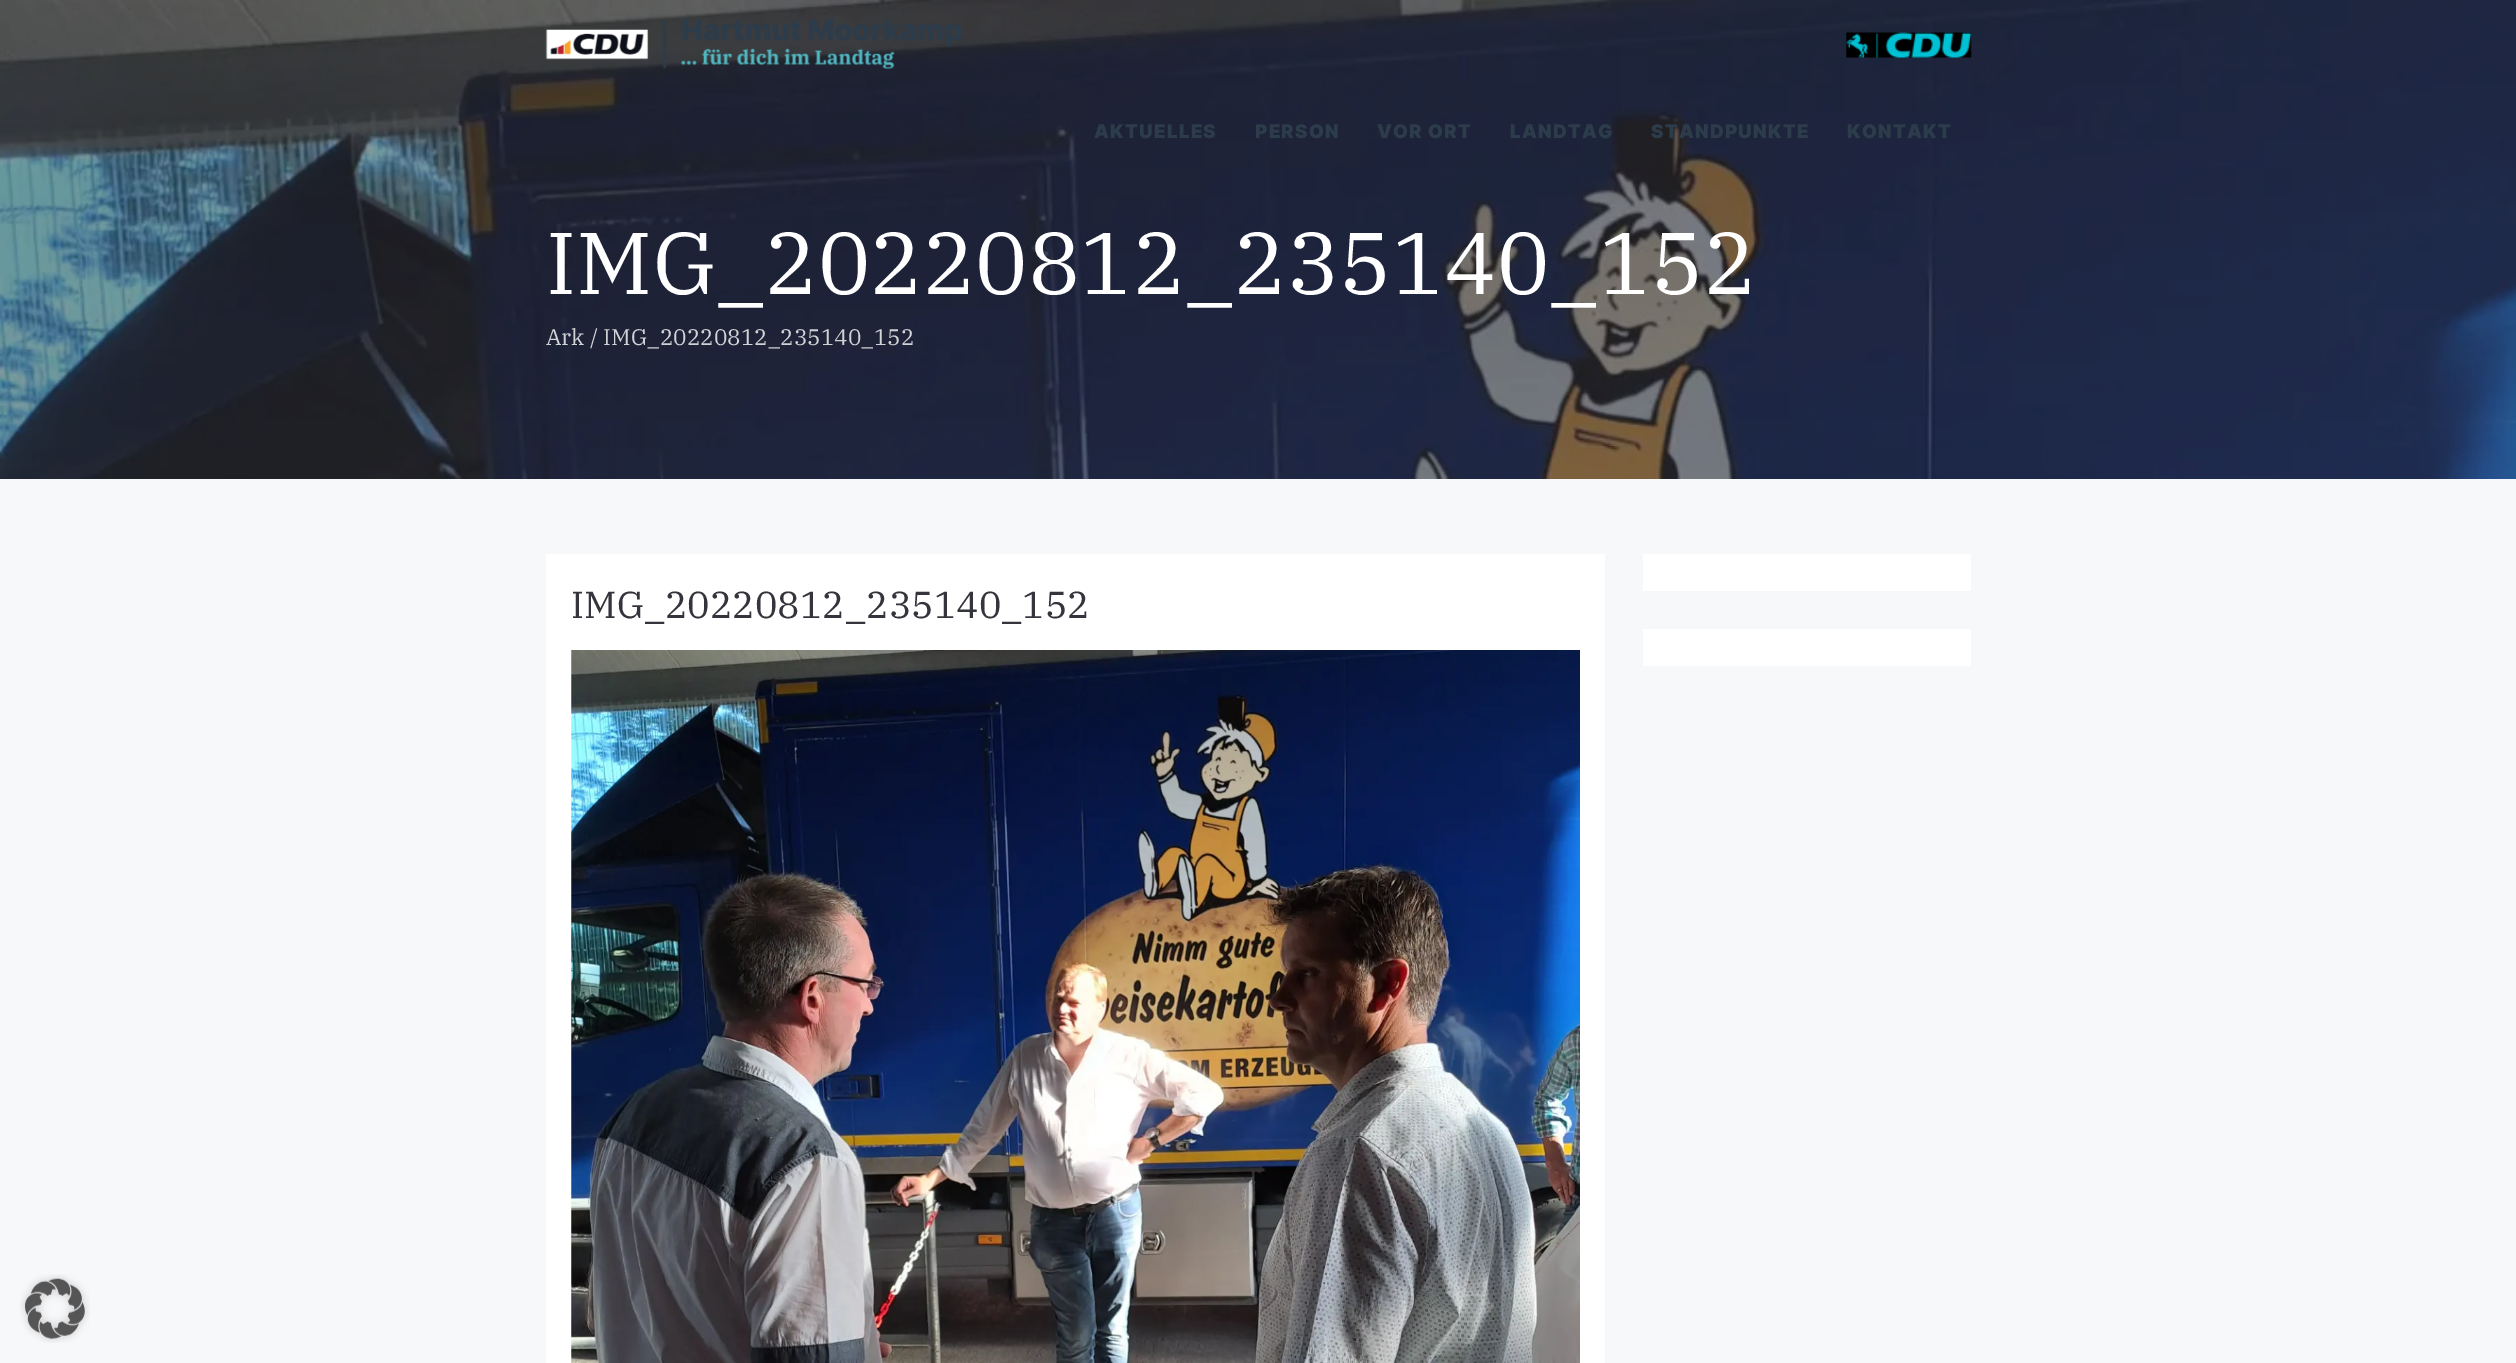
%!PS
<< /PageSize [2516 1363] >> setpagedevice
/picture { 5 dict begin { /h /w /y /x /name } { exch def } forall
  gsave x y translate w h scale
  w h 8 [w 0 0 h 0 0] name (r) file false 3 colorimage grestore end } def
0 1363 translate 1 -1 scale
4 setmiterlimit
0.969 0.973 0.98 setrgbcolor
0 0 2516 1363 rectfill
(img3.rgb) 0 0 2516 479 picture
(img1.rgb) 545 19 417 50 picture
(img2.rgb) 1846 32 126 26 picture
/Inter-Black [18.75 0 0 -18.75 0 0] selectfont
0.176 0.235 0.294 setrgbcolor
1094 138 moveto 1.25 0 (AKTUELLES) ashow
1255 138 moveto 1.25 0 (PERSON) ashow
1377 138 moveto 1.25 0 (VOR ORT) ashow
1510 138 moveto 1.25 0 (LANDTAG) ashow
1651 138 moveto 1.25 0 (STANDPUNKTE) ashow
1847 138 moveto 1.25 0 (KONTAKT) ashow
/IBMPlexSerif-Regular [87.5 0 0 -87.5 0 0] selectfont
1 setgray
546 294 moveto (IMG_20220812_235140_152) show
/IBMPlexSerif-Regular [22.5 0 0 -22.5 0 0] selectfont
0.824 0.827 0.843 setrgbcolor
546 345 moveto (Ark / IMG_20220812_235140_152) show
1 setgray
546 554 1059 809 rectfill
/IBMPlexSerif-Regular [37.5 0 0 -37.5 0 0] selectfont
0.204 0.204 0.235 setrgbcolor
571 618 moveto (IMG_20220812_235140_152) show
(img4.rgb) 571 650 1009 713 picture
1 setgray
1643 554 328 37 rectfill
1643 629 328 37 rectfill
(img5.rgb) 20 1274 70 69 picture
showpage
